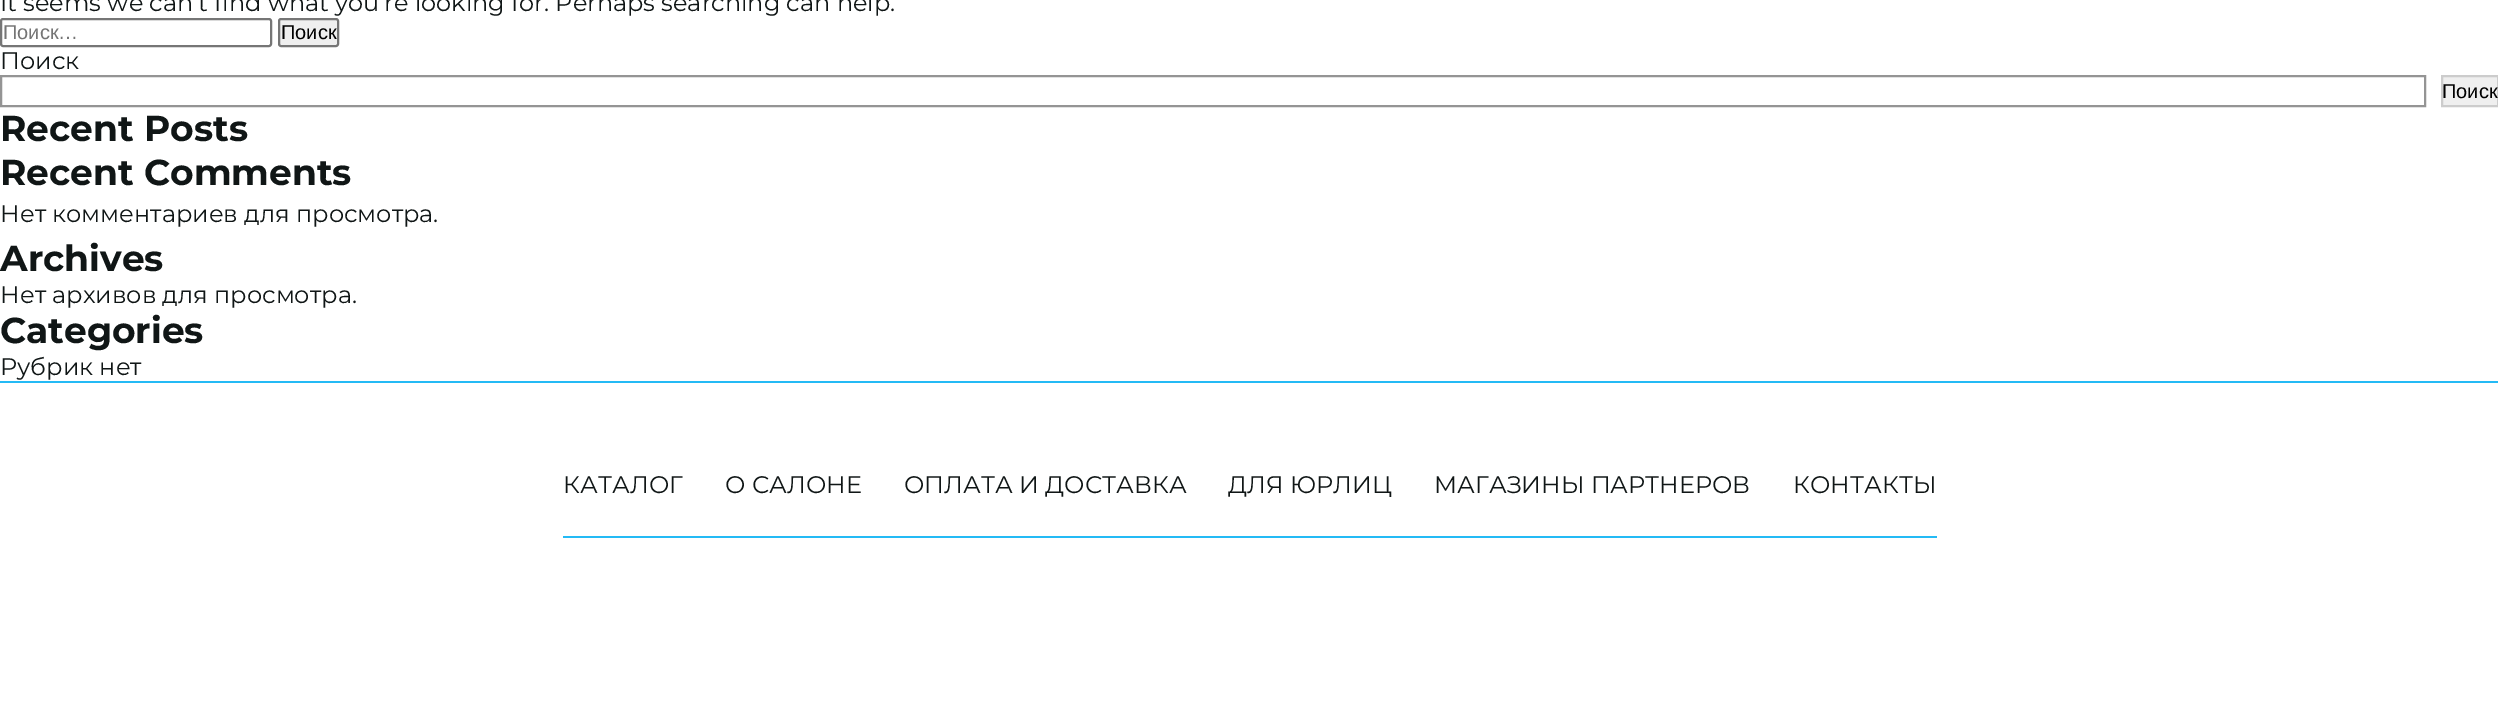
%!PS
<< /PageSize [2498 719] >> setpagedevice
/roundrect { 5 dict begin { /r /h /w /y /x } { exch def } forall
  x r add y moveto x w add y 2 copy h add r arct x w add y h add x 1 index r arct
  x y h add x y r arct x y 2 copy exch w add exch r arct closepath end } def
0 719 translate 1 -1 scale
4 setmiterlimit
1 setgray
0 0 2498 719 rectfill
/Montserrat-Regular [24 0 0 -24 0 0] selectfont
0.063 0.086 0.086 setrgbcolor
0 11 moveto (It seems we can’t find what you’re looking for. Perhaps searching can help.) show
0.463 setgray
2 setlinewidth
1 19 270 27 2 roundrect stroke
/LiberationSans-Regular [20 0 0 -20 0 0] selectfont
0.459 setgray
3 39 moveto (Поиск…) show
0.937 setgray
279 19 59 27 2 roundrect gsave fill grestore
0.463 setgray
stroke
0 setgray
281 39 moveto (Поиск) show
/Montserrat-Regular [24 0 0 -24 0 0] selectfont
0.063 0.086 0.086 setrgbcolor
0 69 moveto (Поиск) show
0.58 setgray
1 76 2424 30 rectstroke
0.937 setgray
newpath 2442 76 moveto 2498 76 lineto 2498 106 lineto 2442 106 lineto closepath gsave fill grestore
0.8 setgray
stroke
/LiberationSans-Regular [20 0 0 -20 0 0] selectfont
0 setgray
2442 98 moveto (Поиск) show
/Montserrat-Bold [36 0 0 -36 0 0] selectfont
0.063 0.086 0.086 setrgbcolor
0 141 moveto (Recent Posts) show
0 185 moveto (Recent Comments) show
/Montserrat-Regular [24 0 0 -24 0 0] selectfont
0 222 moveto (Нет комментариев для просмотра.) show
/Montserrat-Bold [36 0 0 -36 0 0] selectfont
0 271 moveto (Archives) show
/Montserrat-Regular [24 0 0 -24 0 0] selectfont
0 303 moveto (Нет архивов для просмотра.) show
/Montserrat-Bold [36 0 0 -36 0 0] selectfont
0 343 moveto (Categories) show
/Montserrat-Regular [24 0 0 -24 0 0] selectfont
0 375 moveto (Рубрик нет) show
0.141 0.729 0.961 setrgbcolor
0 381 2498 2 rectfill
563 536 1374 2 rectfill
0.063 0.086 0.086 setrgbcolor
563 493 moveto (КАТАЛОГ) show
725 493 moveto (О САЛОНЕ) show
904 493 moveto (ОПЛАТА И ДОСТАВКА) show
1228 493 moveto (ДЛЯ ЮРЛИЦ) show
1434 493 moveto (МАГАЗИНЫ ПАРТНЕРОВ) show
1793 493 moveto (КОНТАКТЫ) show
showpage
